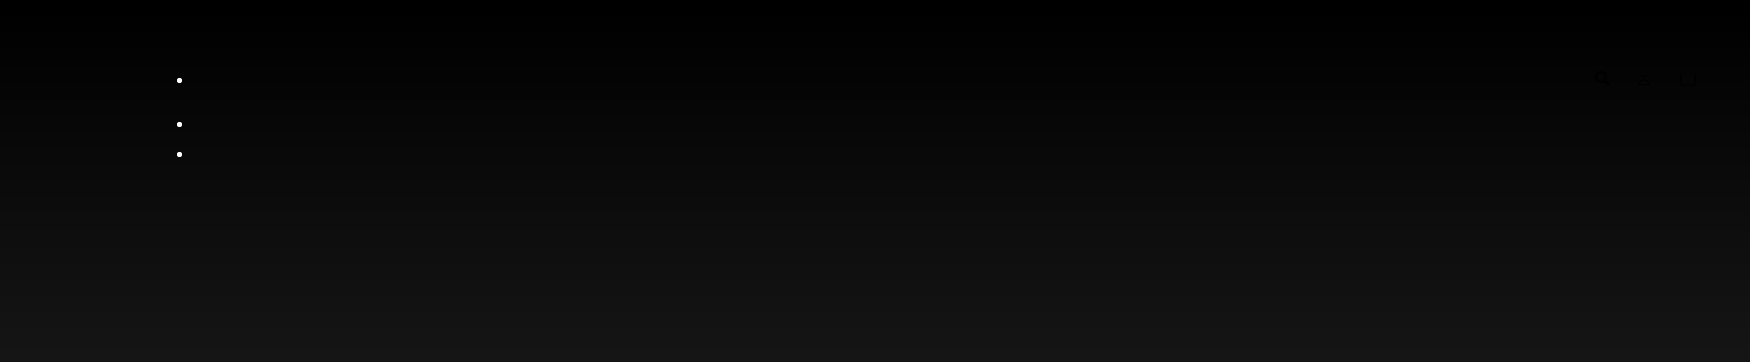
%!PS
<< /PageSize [1750 362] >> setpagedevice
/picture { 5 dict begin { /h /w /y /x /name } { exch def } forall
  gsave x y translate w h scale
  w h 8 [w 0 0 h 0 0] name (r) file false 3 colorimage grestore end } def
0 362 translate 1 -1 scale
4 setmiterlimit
1 setgray
0 0 1750 362 rectfill
gsave newpath 0 0 moveto 1750 0 lineto 1750 362 lineto 0 362 lineto closepath clip newpath
<< /ShadingType 2 /ColorSpace /DeviceRGB /Coords [875 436 875 0] /Extend [true true] /Function << /FunctionType 2 /Domain [0 1] /C0 [0.102 0.102 0.102] /C1 [0 0 0] /N 1 >> >> shfill grestore
newpath 179.5 80.5 2.5 0 360 arc closepath fill
newpath 179.5 124.5 2.5 0 360 arc closepath fill
newpath 179.5 154.5 2.5 0 360 arc closepath fill
0 setgray
1.7 setlinewidth
newpath 1601 77 5 0 360 arc closepath stroke
1 setlinecap
1 setlinejoin
newpath 1605 81 moveto 1608.5 84.5 lineto stroke
(img1.rgb) 1638 75 12 10 picture
(img2.rgb) 1680 75 16 11 picture
showpage
